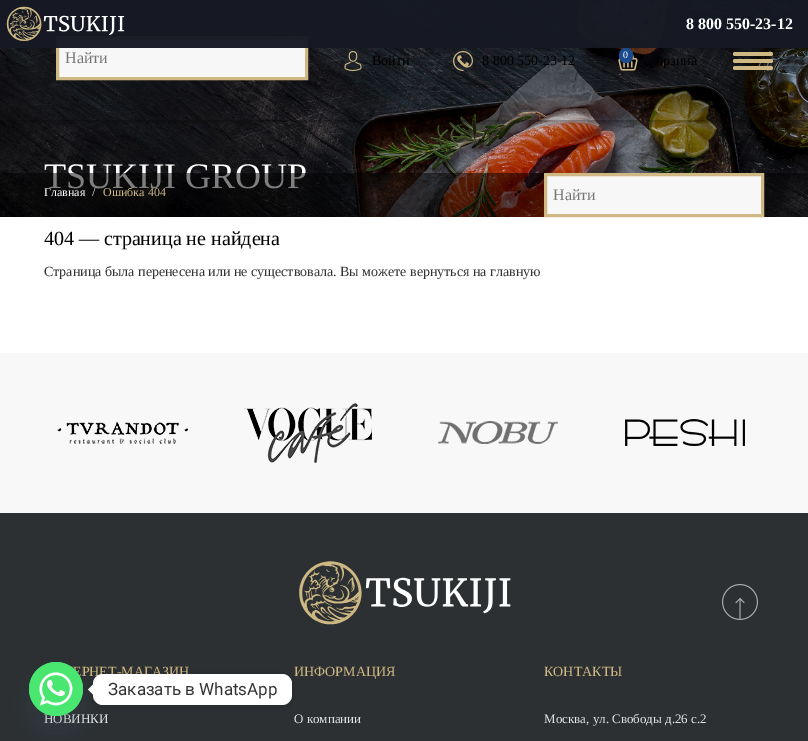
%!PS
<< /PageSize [808 741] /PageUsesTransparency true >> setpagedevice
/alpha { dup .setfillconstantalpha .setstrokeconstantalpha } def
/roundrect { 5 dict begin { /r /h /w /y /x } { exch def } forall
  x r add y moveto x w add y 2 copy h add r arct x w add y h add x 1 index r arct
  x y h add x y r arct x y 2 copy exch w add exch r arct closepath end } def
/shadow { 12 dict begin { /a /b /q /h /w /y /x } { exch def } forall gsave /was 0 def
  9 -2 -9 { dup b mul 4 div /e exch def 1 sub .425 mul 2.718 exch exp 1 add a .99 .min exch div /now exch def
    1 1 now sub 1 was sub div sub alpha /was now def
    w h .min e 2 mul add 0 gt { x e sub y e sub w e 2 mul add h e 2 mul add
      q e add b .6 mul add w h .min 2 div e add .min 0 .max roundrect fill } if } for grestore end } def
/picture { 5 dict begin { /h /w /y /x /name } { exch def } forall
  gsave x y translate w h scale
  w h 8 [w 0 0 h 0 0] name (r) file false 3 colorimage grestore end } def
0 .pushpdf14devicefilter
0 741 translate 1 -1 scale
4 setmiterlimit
1 setgray
0 0 808 741 rectfill
(img2.rgb) 0 0 808 217 picture
gsave
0 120 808 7 rectclip
0 setgray
0 1 808 120 0 3.5 0.4 shadow
grestore
0.969 setgray
newpath 57.5 37.5 moveto 306.5 37.5 lineto 306.5 78.5 lineto 57.5 78.5 lineto closepath gsave fill grestore
0.812 0.722 0.514 setrgbcolor
3 setlinewidth
stroke
0.97 alpha
0.086 0.098 0.141 setrgbcolor
0 0 808 48 rectfill
1 alpha
(img1.rgb) 6 6 119 35 picture
/LiberationSerif-Bold [16 0 0 -16 0 0] selectfont
1 setgray
686 29 moveto (8 800 550-23-12) show
/LiberationSerif-Regular [16 0 0 -16 0 0] selectfont
0.459 setgray
65 63 moveto (Найти) show
(img3.rgb) 344 51 18 20 picture
/LiberationSerif-Regular [14 0 0 -14 0 0] selectfont
0 setgray
372 65 moveto (Войти) show
(img4.rgb) 453 51 20 20 picture
482 65 moveto (8 800 550-23-12) show
(img5.rgb) 618 53 20 18 picture
0.106 0.294 0.549 setrgbcolor
619 48 14 15 7 roundrect fill
/LiberationSerif-Regular [10 0 0 -10 0 0] selectfont
1 setgray
623 58 moveto (0) show
/LiberationSerif-Regular [14 0 0 -14 0 0] selectfont
0 setgray
656 65 moveto (орзина) show
0.812 0.722 0.514 setrgbcolor
733 52 40 4 2 roundrect fill
733 59 40 4 2 roundrect fill
733 66 40 4 2 roundrect fill
/LiberationSerif-Regular [36 0 0 -36 0 0] selectfont
1 setgray
44 188 moveto (TSUKIJI GROUP) show
0.5 alpha
0 setgray
0 173 808 44 rectfill
/LiberationSerif-Regular [12 0 0 -12 0 0] selectfont
1 alpha
1 setgray
44 196 moveto (Главная) show
92 196 moveto (/) show
0.812 0.722 0.514 setrgbcolor
103 196 moveto (Ошибка 404) show
0.969 setgray
newpath 545.5 174.5 moveto 762.5 174.5 lineto 762.5 215.5 lineto 545.5 215.5 lineto closepath gsave fill grestore
0.812 0.722 0.514 setrgbcolor
stroke
/LiberationSerif-Regular [16 0 0 -16 0 0] selectfont
0.459 setgray
553 200 moveto (Найти) show
/LiberationSerif-Regular [20 0 0 -20 0 0] selectfont
0 setgray
44 245 moveto (404 — страница не найдена) show
/LiberationSerif-Regular [14 0 0 -14 0 0] selectfont
0.2 setgray
44 276 moveto (Страница была перенесена или не существовала. Вы можете вернуться на главную) show
0.173 0.188 0.196 setrgbcolor
0 513 808 228 rectfill
0.973 setgray
0 353 808 160 rectfill
(img6.rgb) 57 422 131 22 picture
(img7.rgb) 244 403 128 60 picture
(img8.rgb) 438 421 120 23 picture
(img9.rgb) 625 419 120 27 picture
(img10.rgb) 299 561 212 64 picture
(img11.rgb) 722 584 36 36 picture
0.812 0.722 0.514 setrgbcolor
73 676 moveto (ЕРНЕТ-МАГАЗИН) show
/LiberationSerif-Regular [13 0 0 -13 0 0] selectfont
0.882 setgray
44 723 moveto (НОВИНКИ) show
/LiberationSerif-Regular [14 0 0 -14 0 0] selectfont
0.812 0.722 0.514 setrgbcolor
294 676 moveto (ИНФОРМАЦИЯ) show
/LiberationSerif-Regular [13 0 0 -13 0 0] selectfont
0.882 setgray
294 723 moveto (О компании) show
/LiberationSerif-Regular [14 0 0 -14 0 0] selectfont
0.812 0.722 0.514 setrgbcolor
544 676 moveto (КОНТАКТЫ) show
/LiberationSerif-Regular [13 0 0 -13 0 0] selectfont
0.882 setgray
544 723 moveto (Москва, ул. Свободы д.26 с.2) show
0.286 0.408 0.494 setrgbcolor
29 678 54 54 27 12 0.16 shadow
(img12.rgb) 29 662 54 54 picture
0 setgray
93 675 199 31 10 4 0.15 shadow
1 setgray
93 674 199 31 10 roundrect fill
newpath 93 684.5 moveto 93 694.5 lineto 88 689.5 lineto closepath fill
/Roboto-Regular [17 0 0 -17 0 0] selectfont
0.2 setgray
108 695 moveto (Заказать в WhatsApp) show
.poppdf14devicefilter showpage
